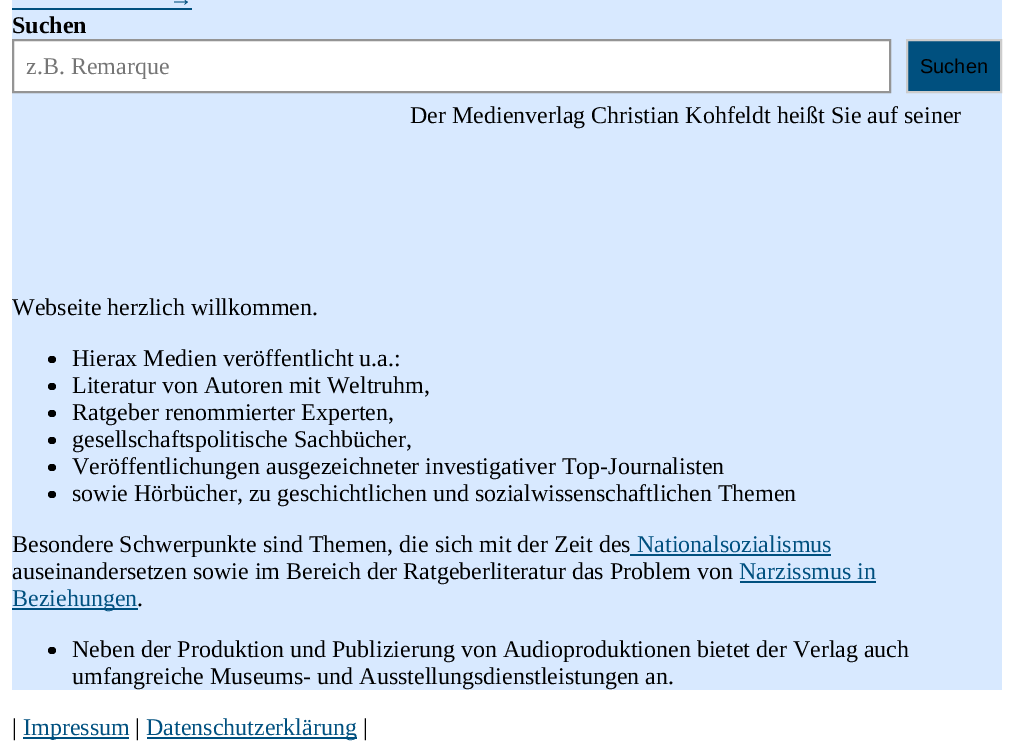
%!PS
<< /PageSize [1014 752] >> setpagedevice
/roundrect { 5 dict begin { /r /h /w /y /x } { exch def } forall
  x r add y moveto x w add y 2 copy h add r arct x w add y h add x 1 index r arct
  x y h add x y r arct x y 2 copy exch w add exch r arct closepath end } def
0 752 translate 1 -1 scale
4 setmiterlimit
1 setgray
0 0 1014 752 rectfill
0.847 0.914 1 setrgbcolor
12 0 990 690 rectfill
/LiberationSerif-Regular [24 0 0 -24 0 0] selectfont
0 0.314 0.498 setrgbcolor
169 6 moveto (→) show
12 8 180 2 rectfill
/LiberationSerif-Bold [24 0 0 -24 0 0] selectfont
0 setgray
12 33 moveto (Suchen) show
1 setgray
newpath 13 40 moveto 890 40 lineto 890 92 lineto 13 92 lineto closepath gsave fill grestore
0.58 setgray
2 setlinewidth
stroke
/LiberationSerif-Regular [24 0 0 -24 0 0] selectfont
0.459 setgray
26 74 moveto (z.B. Remarque) show
0 0.314 0.498 setrgbcolor
newpath 907 40 moveto 1001 40 lineto 1001 92 lineto 907 92 lineto closepath gsave fill grestore
0.8 setgray
stroke
/LiberationSans-Regular [20 0 0 -20 0 0] selectfont
0 setgray
920 73 moveto (Suchen) show
/LiberationSerif-Regular [24 0 0 -24 0 0] selectfont
410 123 moveto (Der Medienverlag Christian Kohfeldt heißt Sie auf seiner) show
12 315 moveto (Webseite herzlich willkommen.) show
48 356 8 7 3.5 roundrect fill
72 366 moveto (Hierax Medien veröffentlicht u.a.:) show
48 383 8 7 3.5 roundrect fill
72 393 moveto (Literatur von Autoren mit Weltruhm,) show
48 410 8 7 3.5 roundrect fill
72 420 moveto (Ratgeber renommierter Experten,) show
48 437 8 7 3.5 roundrect fill
72 447 moveto (gesellschaftspolitische Sachbücher,) show
48 464 8 7 3.5 roundrect fill
72 474 moveto (Veröffentlichungen ausgezeichneter investigativer Top-Journalisten) show
48 491 8 7 3.5 roundrect fill
72 501 moveto (sowie Hörbücher, zu geschichtlichen und sozialwissenschaftlichen Themen) show
12 552 moveto (Besondere Schwerpunkte sind Themen, die sich mit der Zeit des) show
0 0.314 0.498 setrgbcolor
637 552 moveto (Nationalsozialismus) show
630 554 201 2 rectfill
0 setgray
12 579 moveto (auseinandersetzen sowie im Bereich der Ratgeberliteratur das Problem von) show
0 0.314 0.498 setrgbcolor
739 579 moveto (Narzissmus in) show
740 581 136 2 rectfill
12 608 126 2 rectfill
12 606 moveto (Beziehungen) show
0 setgray
137 606 moveto (.) show
48 647 8 7 3.5 roundrect fill
72 657 moveto (Neben der Produktion und Publizierung von Audioproduktionen bietet der Verlag auch) show
72 684 moveto (umfangreiche Museums- und Ausstellungsdienstleistungen an.) show
12 735 moveto (|) show
0 0.314 0.498 setrgbcolor
23 737 106 2 rectfill
23 735 moveto (Impressum) show
0 setgray
135 735 moveto (|) show
0 0.314 0.498 setrgbcolor
147 737 210 2 rectfill
146 735 moveto (Datenschutzerklärung) show
0 setgray
363 735 moveto (|) show
showpage
